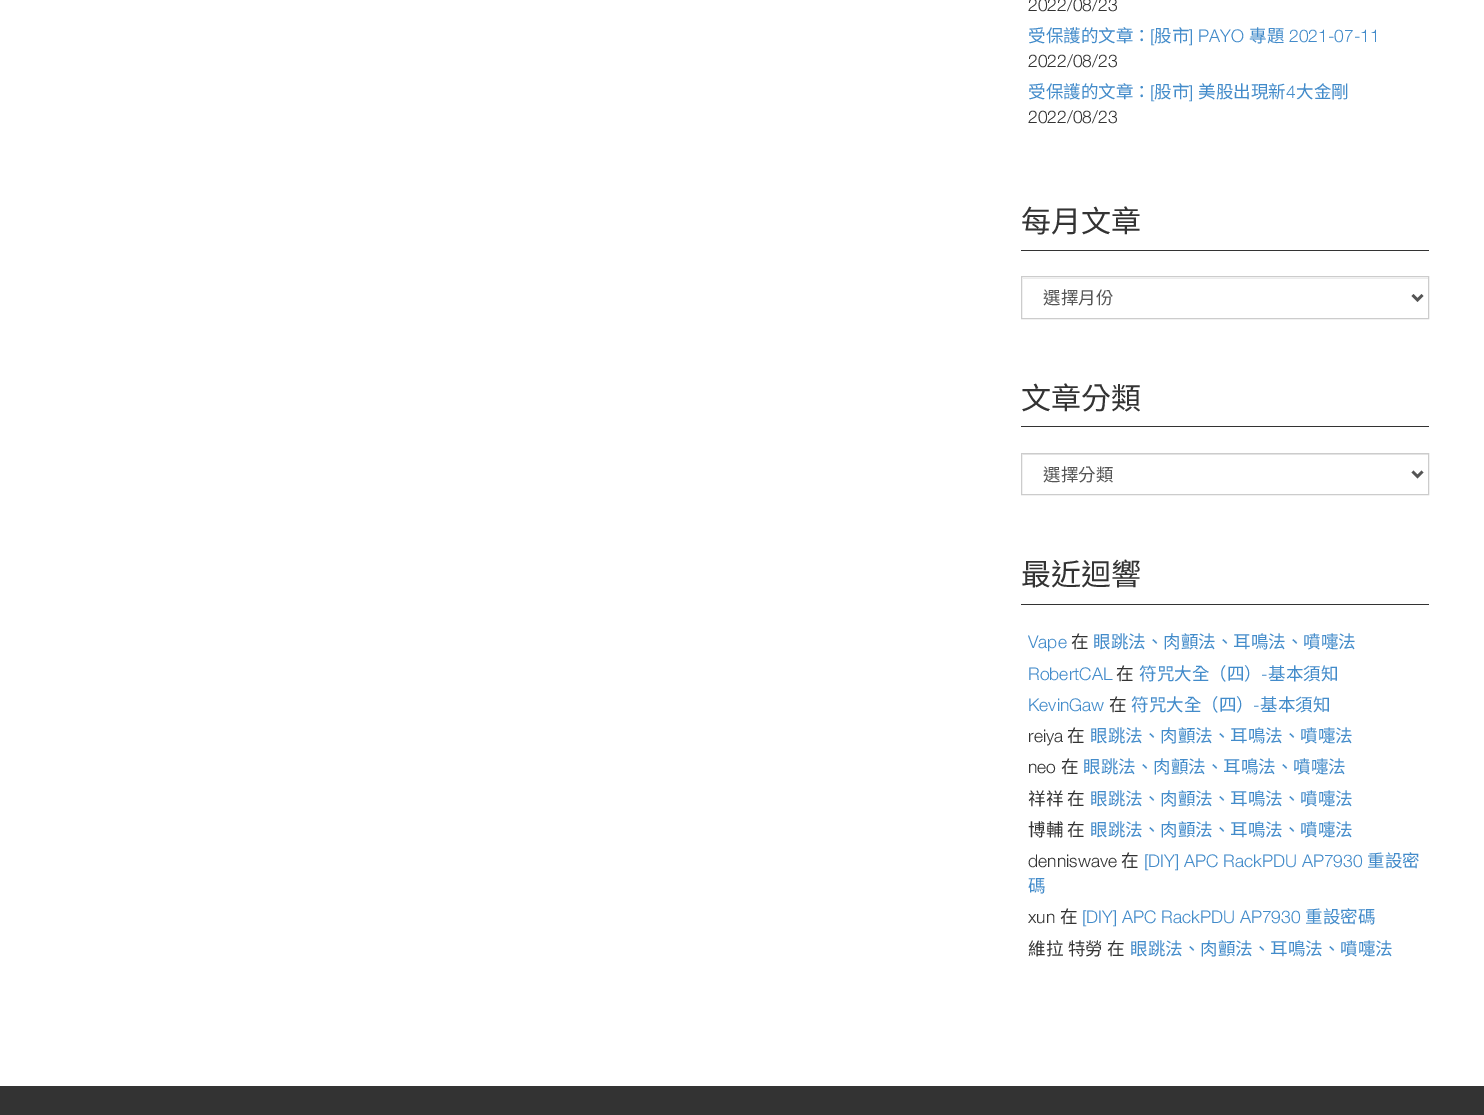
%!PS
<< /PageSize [1484 1115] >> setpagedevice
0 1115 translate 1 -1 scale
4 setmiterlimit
1 setgray
0 0 1484 1115 rectfill
/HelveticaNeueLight-Light [17.5 0 0 -17.5 0 0] selectfont
0.2 setgray
1028 11 moveto (2022/08/23) show
/NotoSansCJKTC-Regular [17.5 0 0 -17.5 0 0] selectfont
0.259 0.545 0.792 setrgbcolor
1028 42 moveto (受保護的文章：) show
/HelveticaNeueLight-Light [17.5 0 0 -17.5 0 0] selectfont
1150 42 moveto ([) show
/NotoSansCJKTC-Regular [17.5 0 0 -17.5 0 0] selectfont
1154 42 moveto (股市) show
/HelveticaNeueLight-Light [17.5 0 0 -17.5 0 0] selectfont
1189 42 moveto (] PAYO) show
/NotoSansCJKTC-Regular [17.5 0 0 -17.5 0 0] selectfont
1249 42 moveto (專題) show
/HelveticaNeueLight-Light [17.5 0 0 -17.5 0 0] selectfont
1289 42 moveto (2021-07-11) show
0.2 setgray
1028 67 moveto (2022/08/23) show
/NotoSansCJKTC-Regular [17.5 0 0 -17.5 0 0] selectfont
0.259 0.545 0.792 setrgbcolor
1028 98 moveto (受保護的文章：) show
/HelveticaNeueLight-Light [17.5 0 0 -17.5 0 0] selectfont
1150 98 moveto ([) show
/NotoSansCJKTC-Regular [17.5 0 0 -17.5 0 0] selectfont
1154 98 moveto (股市) show
/HelveticaNeueLight-Light [17.5 0 0 -17.5 0 0] selectfont
1189 98 moveto (]) show
/NotoSansCJKTC-Regular [17.5 0 0 -17.5 0 0] selectfont
1198 98 moveto (美股出現新) show
/HelveticaNeueLight-Light [17.5 0 0 -17.5 0 0] selectfont
1286 98 moveto (4) show
/NotoSansCJKTC-Regular [17.5 0 0 -17.5 0 0] selectfont
1296 98 moveto (大金剛) show
/HelveticaNeueLight-Light [17.5 0 0 -17.5 0 0] selectfont
0.2 setgray
1028 123 moveto (2022/08/23) show
1021 250 408 1 rectfill
/NotoSansCJKTC-Regular [30 0 0 -30 0 0] selectfont
1021 232 moveto (每月文章) show
0.925 setgray
1023 278 405 1 rectfill
0.8 setgray
1021.5 276.5 407 42 rectstroke
0.333 setgray
2.5 setlinewidth
newpath 1412.5 295 moveto 1417.5 300 lineto 1422.5 295 lineto stroke
/NotoSansCJKTC-Regular [17.5 0 0 -17.5 0 0] selectfont
1043 304 moveto (選擇月份) show
0.2 setgray
1021 426 408 1 rectfill
/NotoSansCJKTC-Regular [30 0 0 -30 0 0] selectfont
1021 409 moveto (文章分類) show
0.925 setgray
1023 454 405 1 rectfill
0.8 setgray
1 setlinewidth
1021.5 453.5 407 41 rectstroke
0.333 setgray
2.5 setlinewidth
newpath 1412.5 471.5 moveto 1417.5 476.5 lineto 1422.5 471.5 lineto stroke
/NotoSansCJKTC-Regular [17.5 0 0 -17.5 0 0] selectfont
1043 481 moveto (選擇分類) show
0.2 setgray
1021 604 408 1 rectfill
/NotoSansCJKTC-Regular [30 0 0 -30 0 0] selectfont
1021 585 moveto (最近迴響) show
/HelveticaNeueLight-Light [17.5 0 0 -17.5 0 0] selectfont
0.259 0.545 0.792 setrgbcolor
1028 648 moveto (Vape) show
/NotoSansCJKTC-Regular [17.5 0 0 -17.5 0 0] selectfont
0.2 setgray
1071 648 moveto (在) show
0.259 0.545 0.792 setrgbcolor
1093 648 moveto (眼跳法、肉顫法、耳鳴法、噴嚏法) show
/HelveticaNeueLight-Light [17.5 0 0 -17.5 0 0] selectfont
1028 680 moveto (RobertCAL) show
/NotoSansCJKTC-Regular [17.5 0 0 -17.5 0 0] selectfont
0.2 setgray
1116 680 moveto (在) show
0.259 0.545 0.792 setrgbcolor
1139 680 moveto (符咒大全（四）) show
/HelveticaNeueLight-Light [17.5 0 0 -17.5 0 0] selectfont
1261 680 moveto (-) show
/NotoSansCJKTC-Regular [17.5 0 0 -17.5 0 0] selectfont
1268 680 moveto (基本須知) show
/HelveticaNeueLight-Light [17.5 0 0 -17.5 0 0] selectfont
1028 711 moveto (KevinGaw) show
/NotoSansCJKTC-Regular [17.5 0 0 -17.5 0 0] selectfont
0.2 setgray
1109 711 moveto (在) show
0.259 0.545 0.792 setrgbcolor
1131 711 moveto (符咒大全（四）) show
/HelveticaNeueLight-Light [17.5 0 0 -17.5 0 0] selectfont
1253 711 moveto (-) show
/NotoSansCJKTC-Regular [17.5 0 0 -17.5 0 0] selectfont
1260 711 moveto (基本須知) show
/HelveticaNeueLight-Light [17.5 0 0 -17.5 0 0] selectfont
0.2 setgray
1028 742 moveto (reiya) show
/NotoSansCJKTC-Regular [17.5 0 0 -17.5 0 0] selectfont
1067 742 moveto (在) show
0.259 0.545 0.792 setrgbcolor
1090 742 moveto (眼跳法、肉顫法、耳鳴法、噴嚏法) show
/HelveticaNeueLight-Light [17.5 0 0 -17.5 0 0] selectfont
0.2 setgray
1028 773 moveto (neo) show
/NotoSansCJKTC-Regular [17.5 0 0 -17.5 0 0] selectfont
1061 773 moveto (在) show
0.259 0.545 0.792 setrgbcolor
1083 773 moveto (眼跳法、肉顫法、耳鳴法、噴嚏法) show
0.2 setgray
1028 805 moveto (祥祥) show
1067 805 moveto (在) show
0.259 0.545 0.792 setrgbcolor
1090 805 moveto (眼跳法、肉顫法、耳鳴法、噴嚏法) show
0.2 setgray
1028 836 moveto (博輔) show
1067 836 moveto (在) show
0.259 0.545 0.792 setrgbcolor
1090 836 moveto (眼跳法、肉顫法、耳鳴法、噴嚏法) show
/HelveticaNeueLight-Light [17.5 0 0 -17.5 0 0] selectfont
0.2 setgray
1028 867 moveto (denniswave) show
/NotoSansCJKTC-Regular [17.5 0 0 -17.5 0 0] selectfont
1121 867 moveto (在) show
/HelveticaNeueLight-Light [17.5 0 0 -17.5 0 0] selectfont
0.259 0.545 0.792 setrgbcolor
1144 867 moveto ([DIY] APC RackPDU AP7930) show
/NotoSansCJKTC-Regular [17.5 0 0 -17.5 0 0] selectfont
1367 867 moveto (重設密) show
1028 892 moveto (碼) show
/HelveticaNeueLight-Light [17.5 0 0 -17.5 0 0] selectfont
0.2 setgray
1028 923 moveto (xun) show
/NotoSansCJKTC-Regular [17.5 0 0 -17.5 0 0] selectfont
1060 923 moveto (在) show
/HelveticaNeueLight-Light [17.5 0 0 -17.5 0 0] selectfont
0.259 0.545 0.792 setrgbcolor
1082 923 moveto ([DIY] APC RackPDU AP7930) show
/NotoSansCJKTC-Regular [17.5 0 0 -17.5 0 0] selectfont
1305 923 moveto (重設密碼) show
0.2 setgray
1028 955 moveto 1 0 32 (維拉 特勞) widthshow
1107 955 moveto (在) show
0.259 0.545 0.792 setrgbcolor
1130 955 moveto (眼跳法、肉顫法、耳鳴法、噴嚏法) show
0.2 setgray
0 1086 1484 29 rectfill
showpage
